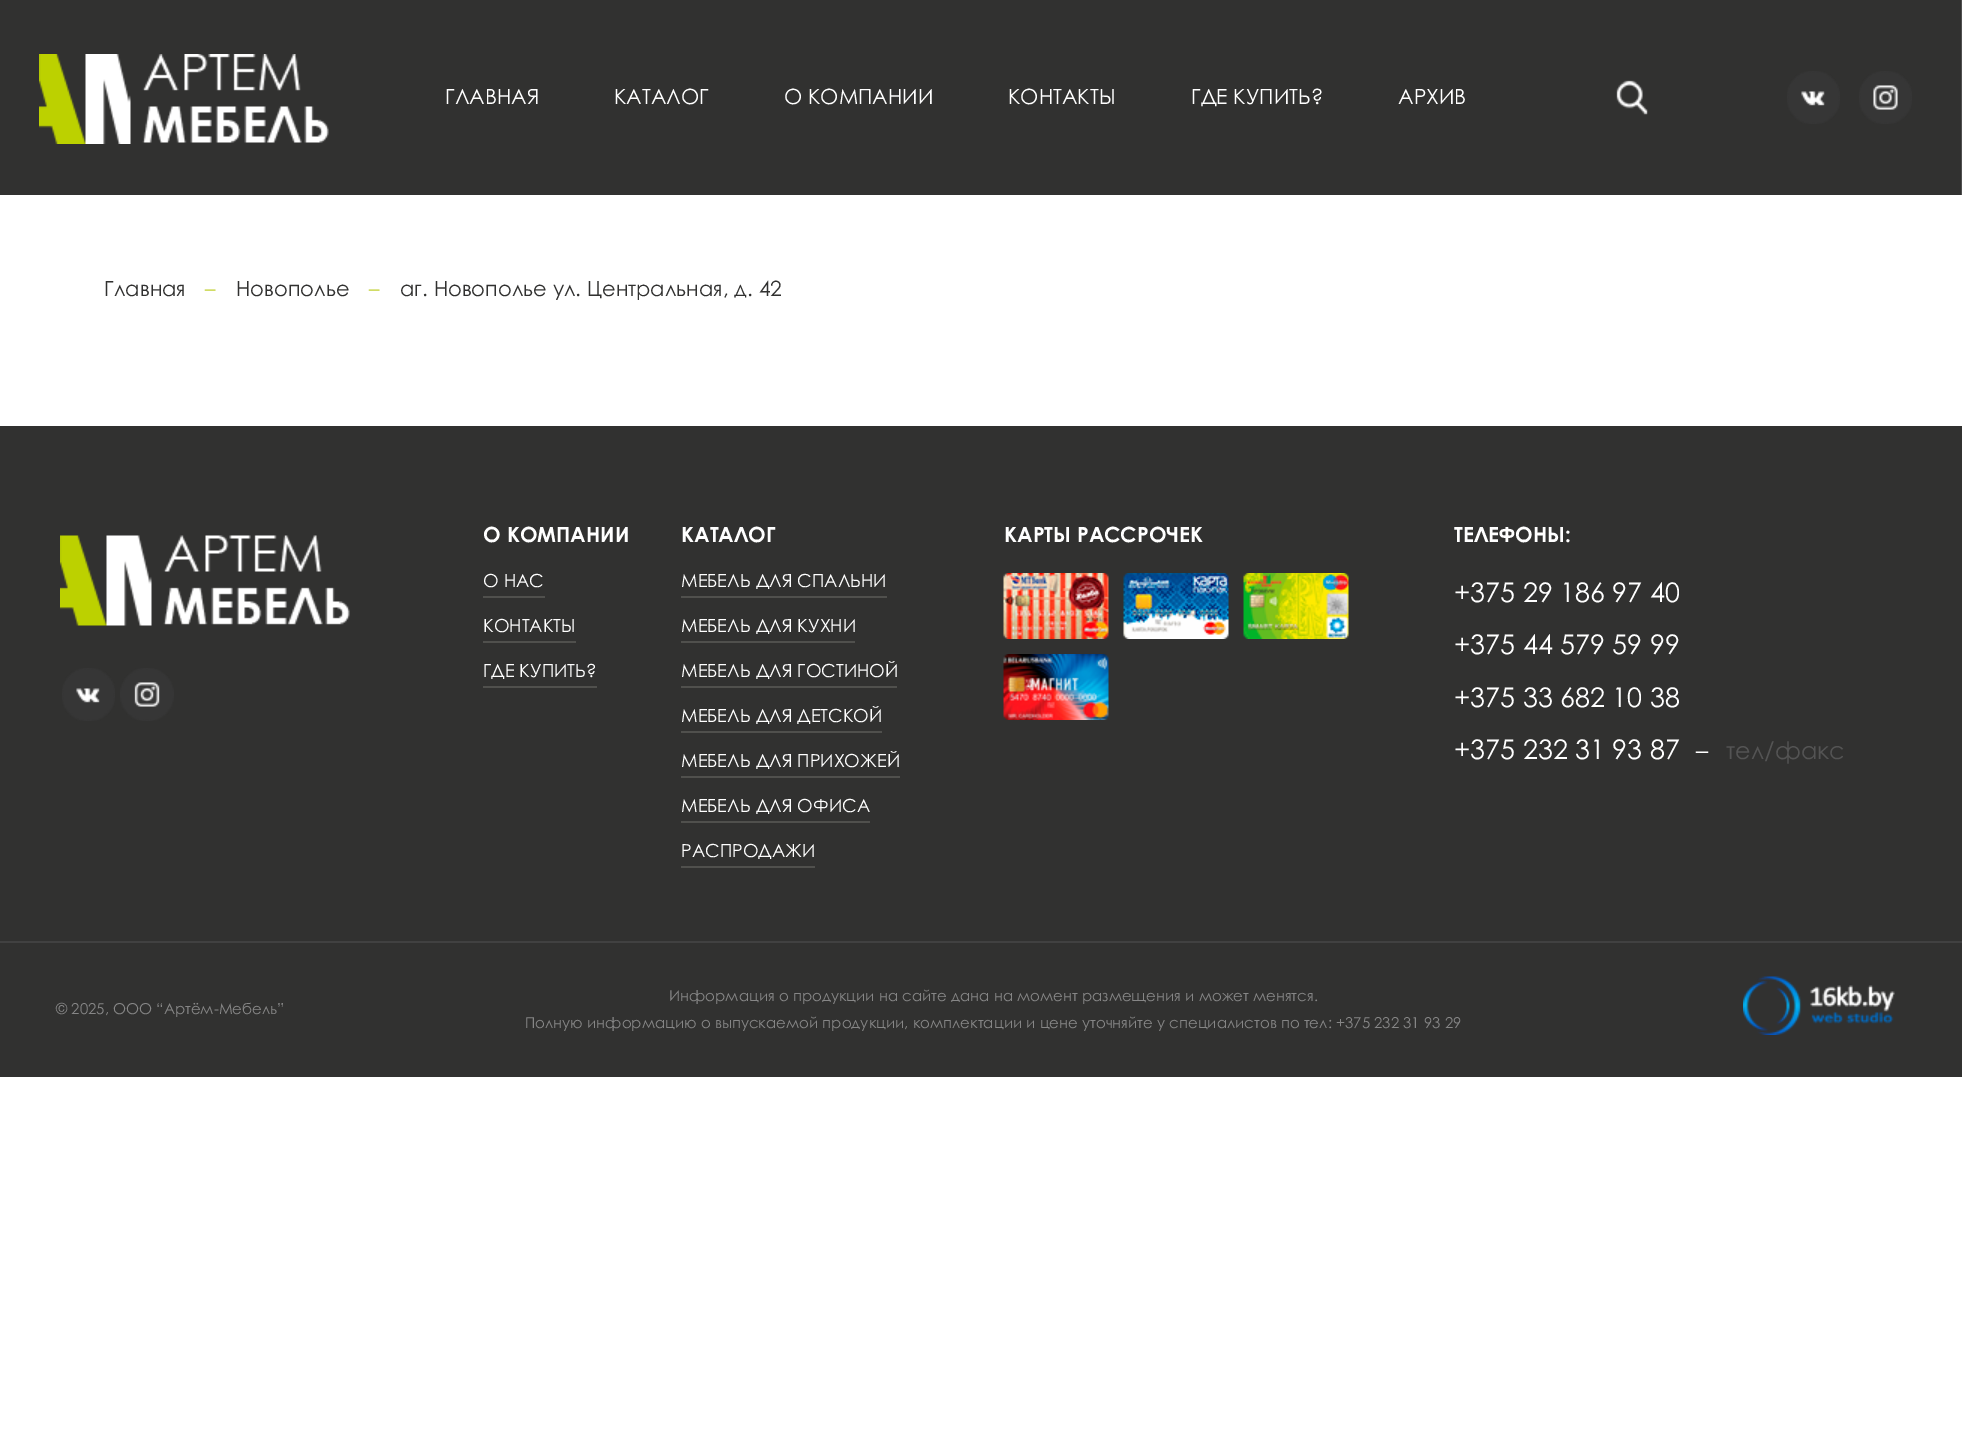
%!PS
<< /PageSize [1962 1434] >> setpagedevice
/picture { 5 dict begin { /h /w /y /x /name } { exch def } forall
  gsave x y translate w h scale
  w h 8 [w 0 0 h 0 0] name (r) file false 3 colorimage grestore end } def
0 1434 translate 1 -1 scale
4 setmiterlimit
1 setgray
0 0 1962 1434 rectfill
0.192 0.192 0.188 setrgbcolor
0 0 1961 195 rectfill
(img1.rgb) 39 54 290 90 picture
/CenturyGothic-Regular [21 0 0 -21 0 0] selectfont
1 setgray
445 104 moveto (ГЛАВНАЯ) show
614 104 moveto (КАТАЛОГ) show
784 104 moveto (О КОМПАНИИ) show
1008 104 moveto (КОНТАКТЫ) show
1191 104 moveto (ГДЕ КУПИТЬ?) show
1398 104 moveto (АРХИВ) show
(img2.rgb) 1616 80 32 35 picture
0.314 setgray
1961 0 1 195 rectfill
(img3.rgb) 1787 71 53 53 picture
(img4.rgb) 1859 71 53 53 picture
0.192 0.192 0.188 setrgbcolor
104 296 moveto (Главная) show
0.757 0.816 0.188 setrgbcolor
205 296 moveto (–) show
0.192 0.192 0.188 setrgbcolor
236 296 moveto (Новополье) show
0.757 0.816 0.188 setrgbcolor
369 296 moveto (–) show
0.192 0.192 0.188 setrgbcolor
400 296 moveto (аг. Новополье ул. Центральная, д. 42) show
0 426 1962 651 rectfill
0.255 setgray
0 941 1962 2 rectfill
(img5.rgb) 60 535 290 91 picture
(img6.rgb) 62 668 53 53 picture
(img7.rgb) 120 668 54 53 picture
/CenturyGothic-Bold [21 0 0 -21 0 0] selectfont
1 setgray
483 542 moveto (О КОМПАНИИ) show
0.314 0.314 0.302 setrgbcolor
483 596 62 2 rectfill
/CenturyGothic-Regular [18 0 0 -18 0 0] selectfont
1 setgray
483 587 moveto (О НАС) show
0.314 0.314 0.302 setrgbcolor
483 641 93 2 rectfill
1 setgray
483 632 moveto (КОНТАКТЫ) show
0.314 0.314 0.302 setrgbcolor
483 686 114 2 rectfill
1 setgray
483 677 moveto (ГДЕ КУПИТЬ?) show
/CenturyGothic-Bold [21 0 0 -21 0 0] selectfont
681 542 moveto (КАТАЛОГ) show
0.314 0.314 0.302 setrgbcolor
681 596 206 2 rectfill
/CenturyGothic-Regular [18 0 0 -18 0 0] selectfont
1 setgray
681 587 moveto (МЕБЕЛЬ ДЛЯ СПАЛЬНИ) show
0.314 0.314 0.302 setrgbcolor
681 641 174 2 rectfill
1 setgray
681 632 moveto (МЕБЕЛЬ ДЛЯ КУХНИ) show
0.314 0.314 0.302 setrgbcolor
681 686 216 2 rectfill
1 setgray
681 677 moveto (МЕБЕЛЬ ДЛЯ ГОСТИНОЙ) show
0.314 0.314 0.302 setrgbcolor
681 731 201 2 rectfill
1 setgray
681 722 moveto (МЕБЕЛЬ ДЛЯ ДЕТСКОЙ) show
0.314 0.314 0.302 setrgbcolor
681 776 219 2 rectfill
1 setgray
681 767 moveto (МЕБЕЛЬ ДЛЯ ПРИХОЖЕЙ) show
0.314 0.314 0.302 setrgbcolor
681 821 189 2 rectfill
1 setgray
681 812 moveto (МЕБЕЛЬ ДЛЯ ОФИСА) show
0.314 0.314 0.302 setrgbcolor
681 866 134 2 rectfill
1 setgray
681 857 moveto (РАСПРОДАЖИ) show
/CenturyGothic-Bold [21 0 0 -21 0 0] selectfont
1004 542 moveto (КАРТЫ РАССРОЧЕК) show
(img8.rgb) 1003 573 106 66 picture
(img9.rgb) 1123 573 106 66 picture
(img10.rgb) 1243 573 106 66 picture
(img11.rgb) 1003 654 106 66 picture
1454 542 moveto (ТЕЛЕФОНЫ:) show
/CenturyGothic-Regular [27 0 0 -27 0 0] selectfont
1454 602 moveto (+375 29 186 97 40) show
1454 654 moveto (+375 44 579 59 99) show
1454 707 moveto (+375 33 682 10 38) show
1454 759 moveto (+375 232 31 93 87) show
/CenturyGothic-Regular [24 0 0 -24 0 0] selectfont
1696 759 moveto (–) show
0.329 setgray
1726 759 moveto (тел/факс) show
/CenturyGothic-Regular [15 0 0 -15 0 0] selectfont
0.525 setgray
56 1014 moveto (© 2025, ООО “Артём-Мебель”) show
669 1001 moveto (Информация о продукции на сайте дана на момент размещения и может менятся.) show
525 1028 moveto (Полную информацию о выпускаемой продукции, комплектации и цене уточняйте у специалистов по тел: +375 232 31 93 29) show
(img12.rgb) 1743 976 152 59 picture
showpage
